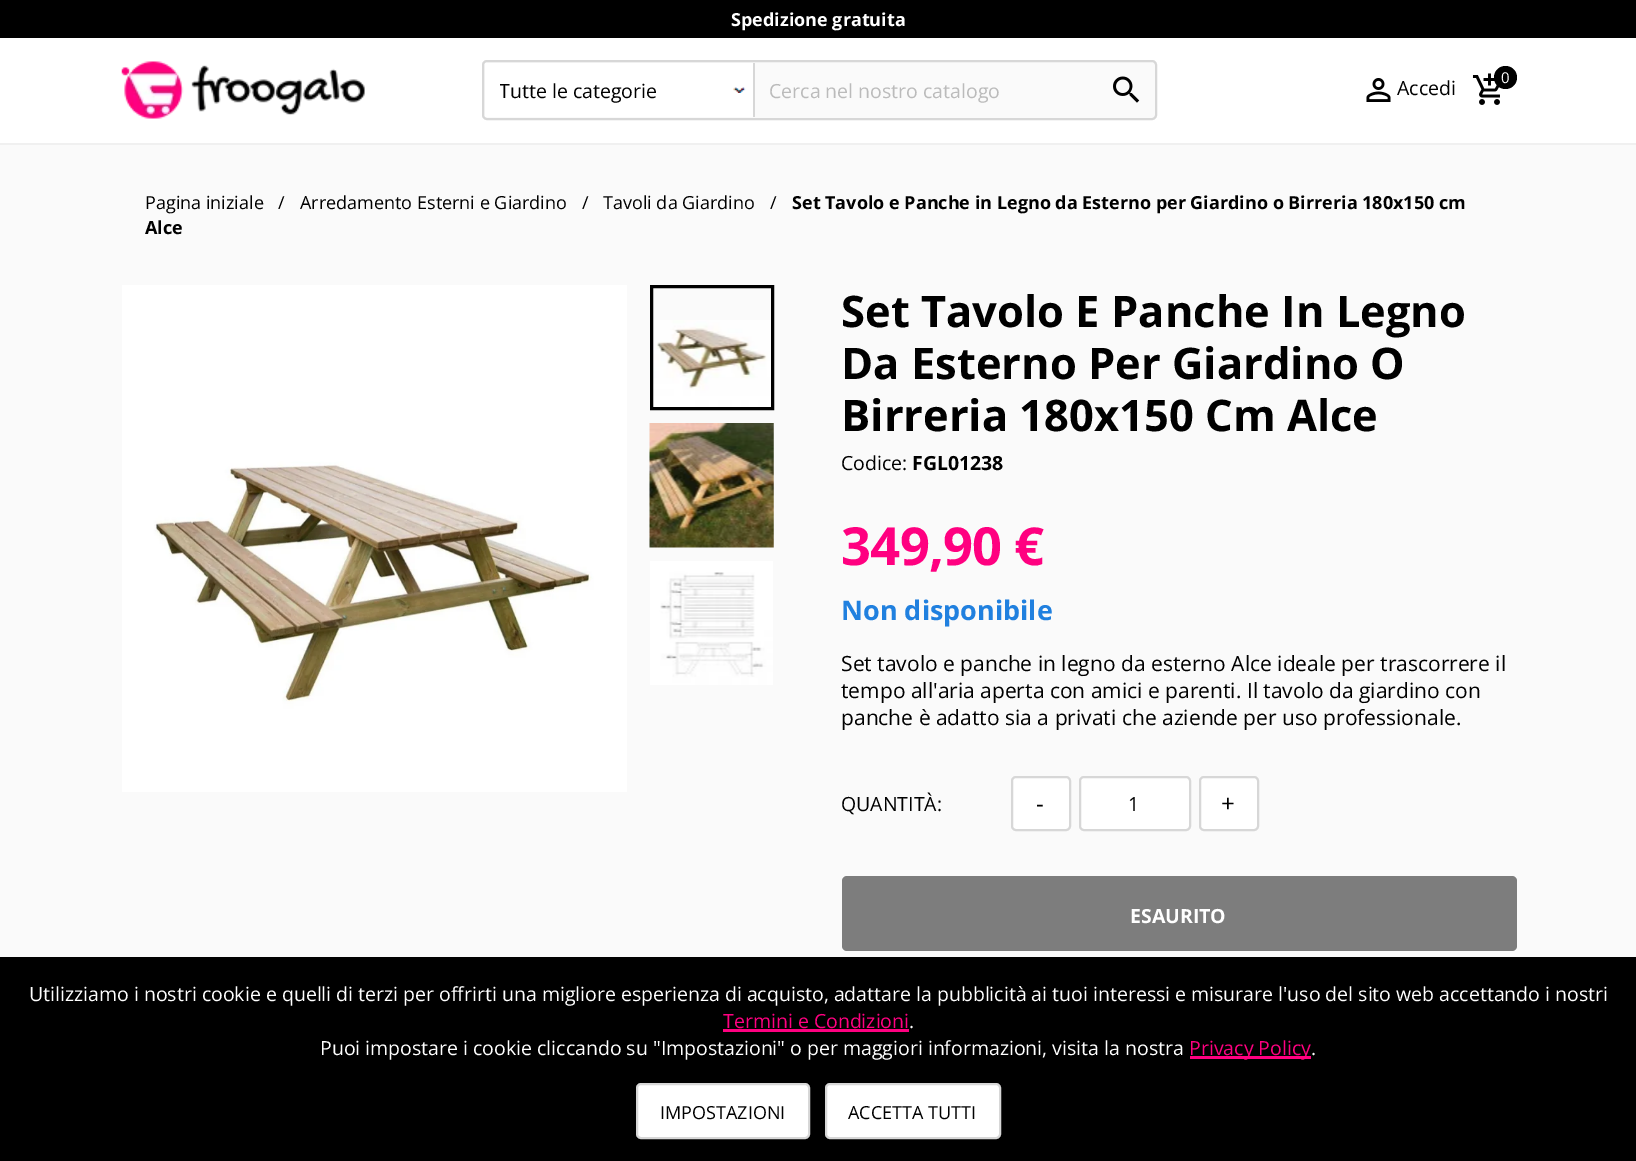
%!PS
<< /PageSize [1636 1161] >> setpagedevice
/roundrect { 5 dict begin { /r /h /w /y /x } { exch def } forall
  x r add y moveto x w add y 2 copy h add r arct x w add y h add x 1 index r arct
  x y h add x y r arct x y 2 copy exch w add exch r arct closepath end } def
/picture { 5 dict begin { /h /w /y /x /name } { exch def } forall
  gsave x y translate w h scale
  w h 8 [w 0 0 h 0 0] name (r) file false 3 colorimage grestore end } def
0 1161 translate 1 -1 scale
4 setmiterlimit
1 setgray
0 0 1636 1161 rectfill
0.941 setgray
0 143 1636 2 rectfill
0 setgray
0 0 1636 38 rectfill
/OpenSans-Bold [18 0 0 -18 0 0] selectfont
1 setgray
731 26 moveto (Spedizione gratuita) show
(img1.rgb) 121 61 244 58 picture
0.98 setgray
483 61 673 58 4 roundrect gsave fill grestore
0.843 setgray
2 setlinewidth
stroke
1 setgray
485 63 268 54 rectfill
(img2.rgb) 733 87 13 6 picture
0.843 setgray
753 63 2 54 rectfill
gsave
500 77 208 27 rectclip
/OpenSans-Regular [19.5 0 0 -19.5 0 0] selectfont
0 setgray
499 98 moveto (Tutte le categorie) show
grestore
/OpenSans-Regular [19.5 0 0 -19.5 0 0] selectfont
0.733 setgray
769 98 moveto (Cerca nel nostro catalogo) show
(img3.rgb) 1113 76 27 27 picture
(img4.rgb) 1472 73 28 32 picture
0 setgray
newpath 1505.5 77.5 11.5 0 360 arc closepath fill
/OpenSans-Regular [15 0 0 -15 0 0] selectfont
1 setgray
1501 83 moveto (0) show
(img5.rgb) 1366 78 25 24 picture
/OpenSans-Regular [19.5 0 0 -19.5 0 0] selectfont
0 setgray
1397 95 moveto (Accedi) show
0.98 setgray
0 145 1636 812 rectfill
/OpenSans-Regular [18 0 0 -18 0 0] selectfont
0 setgray
145 209 moveto (Pagina iniziale) show
278 209 moveto (/) show
300 209 moveto (Arredamento Esterni e Giardino) show
582 209 moveto (/) show
603 209 moveto (Tavoli da Giardino) show
770 209 moveto (/) show
/OpenSans-Bold [18 0 0 -18 0 0] selectfont
792 209 moveto (Set Tavolo e Panche in Legno da Esterno per Giardino o Birreria 180x150 cm) show
145 234 moveto (Alce) show
(img6.rgb) 122 285 505 507 picture
(img7.rgb) 653 320 118 87 picture
3 setlinewidth
651.5 286.5 121 122 rectstroke
(img8.rgb) 649 423 125 125 picture
(img9.rgb) 650 561 123 124 picture
/OpenSans-Bold [43.5 0 0 -43.5 0 0] selectfont
841 327 moveto (Set Tavolo E Panche In Legno) show
841 379 moveto (Da Esterno Per Giardino O) show
841 431 moveto (Birreria 180x150 Cm Alce) show
/OpenSans-Regular [19.5 0 0 -19.5 0 0] selectfont
841 470 moveto (Codice:) show
/OpenSans-Bold [19.5 0 0 -19.5 0 0] selectfont
912 470 moveto (FGL01238) show
/OpenSans-Bold [52.5 0 0 -52.5 0 0] selectfont
1 0 0.502 setrgbcolor
841 565 moveto -0.75 0 (349,90 €) ashow
/OpenSans-Bold [27 0 0 -27 0 0] selectfont
0.125 0.502 0.875 setrgbcolor
841 620 moveto (Non disponibile) show
/OpenSans-Regular [21 0 0 -21 0 0] selectfont
0 setgray
841 671 moveto (Set tavolo e panche in legno da esterno Alce ideale per trascorrere il) show
841 698 moveto (tempo all'aria aperta con amici e parenti. Il tavolo da giardino con) show
841 725 moveto (panche è adatto sia a privati che aziende per uso professionale.) show
/OpenSans-Regular [19.5 0 0 -19.5 0 0] selectfont
841 811 moveto (QUANTITÀ:) show
1 setgray
1012 777 58 53 4 roundrect gsave fill grestore
0.843 setgray
2 setlinewidth
stroke
/OpenSans-Regular [24 0 0 -24 0 0] selectfont
0 setgray
1036 812 moveto (-) show
1 setgray
1080 777 110 53 4 roundrect gsave fill grestore
0.843 setgray
stroke
/OpenSans-Regular [19.5 0 0 -19.5 0 0] selectfont
0 setgray
1128 811 moveto (1) show
1 setgray
1200 777 58 53 4 roundrect gsave fill grestore
0.843 setgray
stroke
/OpenSans-Regular [24 0 0 -24 0 0] selectfont
0 setgray
1221 812 moveto (+) show
0.49 setgray
842 876 675 75 5 roundrect fill
/OpenSans-Bold [19.5 0 0 -19.5 0 0] selectfont
1 setgray
1130 923 moveto (ESAURITO) show
0 setgray
0 957 1636 204 rectfill
/OpenSans-Regular [19.5 0 0 -19.5 0 0] selectfont
1 setgray
29 1001 moveto (Utilizziamo i nostri cookie e quelli di terzi per offrirti una migliore esperienza di acquisto, adattare la pubblicità ai tuoi interessi e misurare l'uso del sito web accettando i nostri) show
1 0 0.502 setrgbcolor
723 1028 moveto (Termini e Condizioni) show
723 1029 186 3 rectfill
1 setgray
909 1028 moveto (.) show
320 1055 moveto (Puoi impostare i cookie cliccando su "Impostazioni" o per maggiori informazioni, visita la nostra) show
1 0 0.502 setrgbcolor
1190 1056 121 3 rectfill
1189 1055 moveto (Privacy Policy) show
1 setgray
1311 1055 moveto (.) show
637 1084 172 54 4 roundrect gsave fill grestore
0.843 setgray
stroke
/OpenSans-Regular [18 0 0 -18 0 0] selectfont
0 setgray
660 1119 moveto (IMPOSTAZIONI) show
1 setgray
826 1084 174 54 4 roundrect gsave fill grestore
0.843 setgray
stroke
0 setgray
848 1119 moveto (ACCETTA TUTTI) show
showpage
